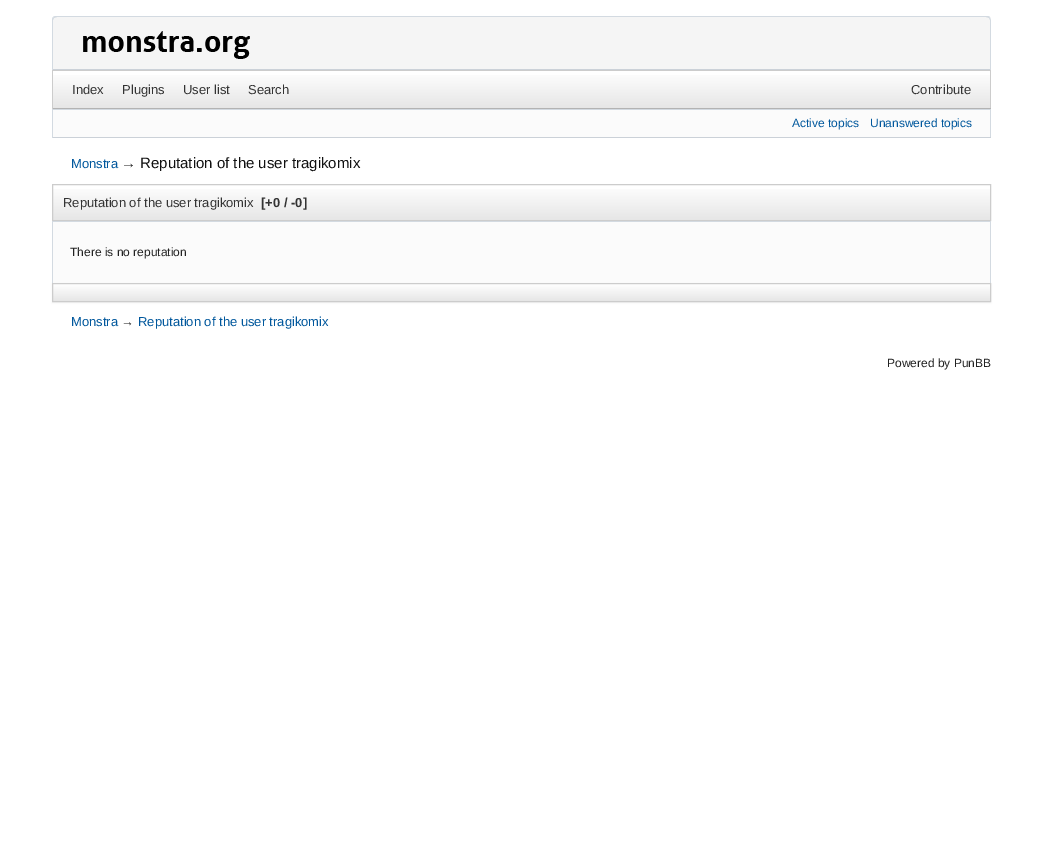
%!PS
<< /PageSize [1043 861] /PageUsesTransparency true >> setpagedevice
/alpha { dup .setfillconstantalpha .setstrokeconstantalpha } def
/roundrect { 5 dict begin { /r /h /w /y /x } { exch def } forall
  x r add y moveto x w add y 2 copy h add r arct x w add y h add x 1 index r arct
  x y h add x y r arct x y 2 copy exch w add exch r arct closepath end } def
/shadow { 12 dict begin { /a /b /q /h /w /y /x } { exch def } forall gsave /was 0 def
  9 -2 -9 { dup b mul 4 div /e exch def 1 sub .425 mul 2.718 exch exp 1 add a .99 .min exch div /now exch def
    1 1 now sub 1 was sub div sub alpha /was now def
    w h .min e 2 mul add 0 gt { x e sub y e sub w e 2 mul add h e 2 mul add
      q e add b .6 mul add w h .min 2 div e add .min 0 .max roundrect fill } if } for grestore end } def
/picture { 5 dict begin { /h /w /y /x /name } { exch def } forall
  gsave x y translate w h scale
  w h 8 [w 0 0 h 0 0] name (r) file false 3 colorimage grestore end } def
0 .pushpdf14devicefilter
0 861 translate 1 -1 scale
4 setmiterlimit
1 setgray
0 0 1043 861 rectfill
0.961 setgray
newpath 57 16 moveto 986 16 lineto 989 16 991 18 991 21 curveto 991 70 lineto 52 70 lineto 52 21 lineto 52 18 54 16 57 16 curveto closepath fill
0.827 0.855 0.882 setrgbcolor
newpath 57 16 moveto 56 16 54 16 53 17 curveto 54 18 lineto 57 17 lineto 986 17 lineto 989 18 lineto 990 17 lineto 989 16 988 16 986 16 curveto closepath fill
newpath 991 70 moveto 991 21 lineto 991 20 990 18 990 17 curveto 989 18 lineto 990 20 lineto 990 69 lineto closepath fill
0.796 0.82 0.847 setrgbcolor
newpath 991 70 moveto 990 69 lineto 53 69 lineto 52 70 lineto closepath fill
0.827 0.855 0.882 setrgbcolor
newpath 52 70 moveto 53 69 lineto 53 20 lineto 54 18 lineto 53 17 lineto 52 18 52 20 52 21 curveto closepath fill
(img1.rgb) 83 31 167 28 picture
gsave newpath 53 75 moveto 990 75 lineto 990 108 lineto 53 108 lineto closepath clip newpath
<< /ShadingType 2 /ColorSpace /DeviceRGB /Coords [522 71 522 108] /Extend [true true] /Function << /FunctionType 2 /Domain [0 1] /C0 [1 1 1] /C1 [0.902 0.902 0.902] /N 1 >> >> shfill grestore
0.8 setgray
52 70 939 1 rectfill
990 70 1 39 rectfill
0.702 setgray
52 108 939 1 rectfill
0.8 setgray
52 70 1 39 rectfill
/LiberationSans-Regular [13 0 0 -13 0 0] selectfont
0.2 setgray
72 94 moveto (Index) show
122 94 moveto (Plugins) show
183 94 moveto (User list) show
248 94 moveto (Search) show
911 94 moveto (Contribute) show
0.984 setgray
53 110 937 27 rectfill
0.827 0.855 0.882 setrgbcolor
52 109 939 1 rectfill
990 109 1 29 rectfill
0.796 0.82 0.847 setrgbcolor
52 137 939 1 rectfill
0.827 0.855 0.882 setrgbcolor
52 109 1 29 rectfill
/LiberationSans-Regular [12 0 0 -12 0 0] selectfont
0 0.341 0.612 setrgbcolor
792 127 moveto (Active topics) show
870 127 moveto (Unanswered topics) show
/LiberationSans-Regular [13 0 0 -13 0 0] selectfont
71 168 moveto (Monstra) show
/LiberationSans-Regular [15 0 0 -15 0 0] selectfont
0.133 setgray
121 168 moveto (→) show
0.067 setgray
140 168 moveto (Reputation of the user tragikomix) show
gsave newpath 53 189 moveto 990 189 lineto 990 220 lineto 53 220 lineto closepath clip newpath
<< /ShadingType 2 /ColorSpace /DeviceRGB /Coords [522 185 522 220] /Extend [true true] /Function << /FunctionType 2 /Domain [0 1] /C0 [1 1 1] /C1 [0.902 0.902 0.902] /N 1 >> >> shfill grestore
0.8 setgray
52.5 184.5 938 36 rectstroke
/LiberationSans-Regular [13 0 0 -13 0 0] selectfont
0.2 setgray
63 207 moveto (Reputation of the user tragikomix) show
/LiberationSans-Bold [13 0 0 -13 0 0] selectfont
261 207 moveto ([+0 / -0]) show
0.984 setgray
53 222 937 61 rectfill
0.827 0.855 0.882 setrgbcolor
52 221 939 1 rectfill
990 221 1 63 rectfill
52 221 1 63 rectfill
/LiberationSans-Regular [12 0 0 -12 0 0] selectfont
0.133 setgray
70 256 moveto (There is no reputation) show
0 setgray
52 284 939 19 0 1 0.05 shadow
gsave newpath 53 284 moveto 990 284 lineto 990 301 lineto 53 301 lineto closepath clip newpath
<< /ShadingType 2 /ColorSpace /DeviceRGB /Coords [522 284 522 301] /Extend [true true] /Function << /FunctionType 2 /Domain [0 1] /C0 [1 1 1] /C1 [0.902 0.902 0.902] /N 1 >> >> shfill grestore
0.8 setgray
52.5 283.5 938 18 rectstroke
/LiberationSans-Regular [13 0 0 -13 0 0] selectfont
0 0.341 0.612 setrgbcolor
71 326 moveto (Monstra) show
0.133 setgray
121 326 moveto (→) show
0 0.341 0.612 setrgbcolor
138 326 moveto (Reputation of the user tragikomix) show
/LiberationSans-Regular [12 0 0 -12 0 0] selectfont
0.133 setgray
887 367 moveto (Powered by PunBB) show
.poppdf14devicefilter showpage
